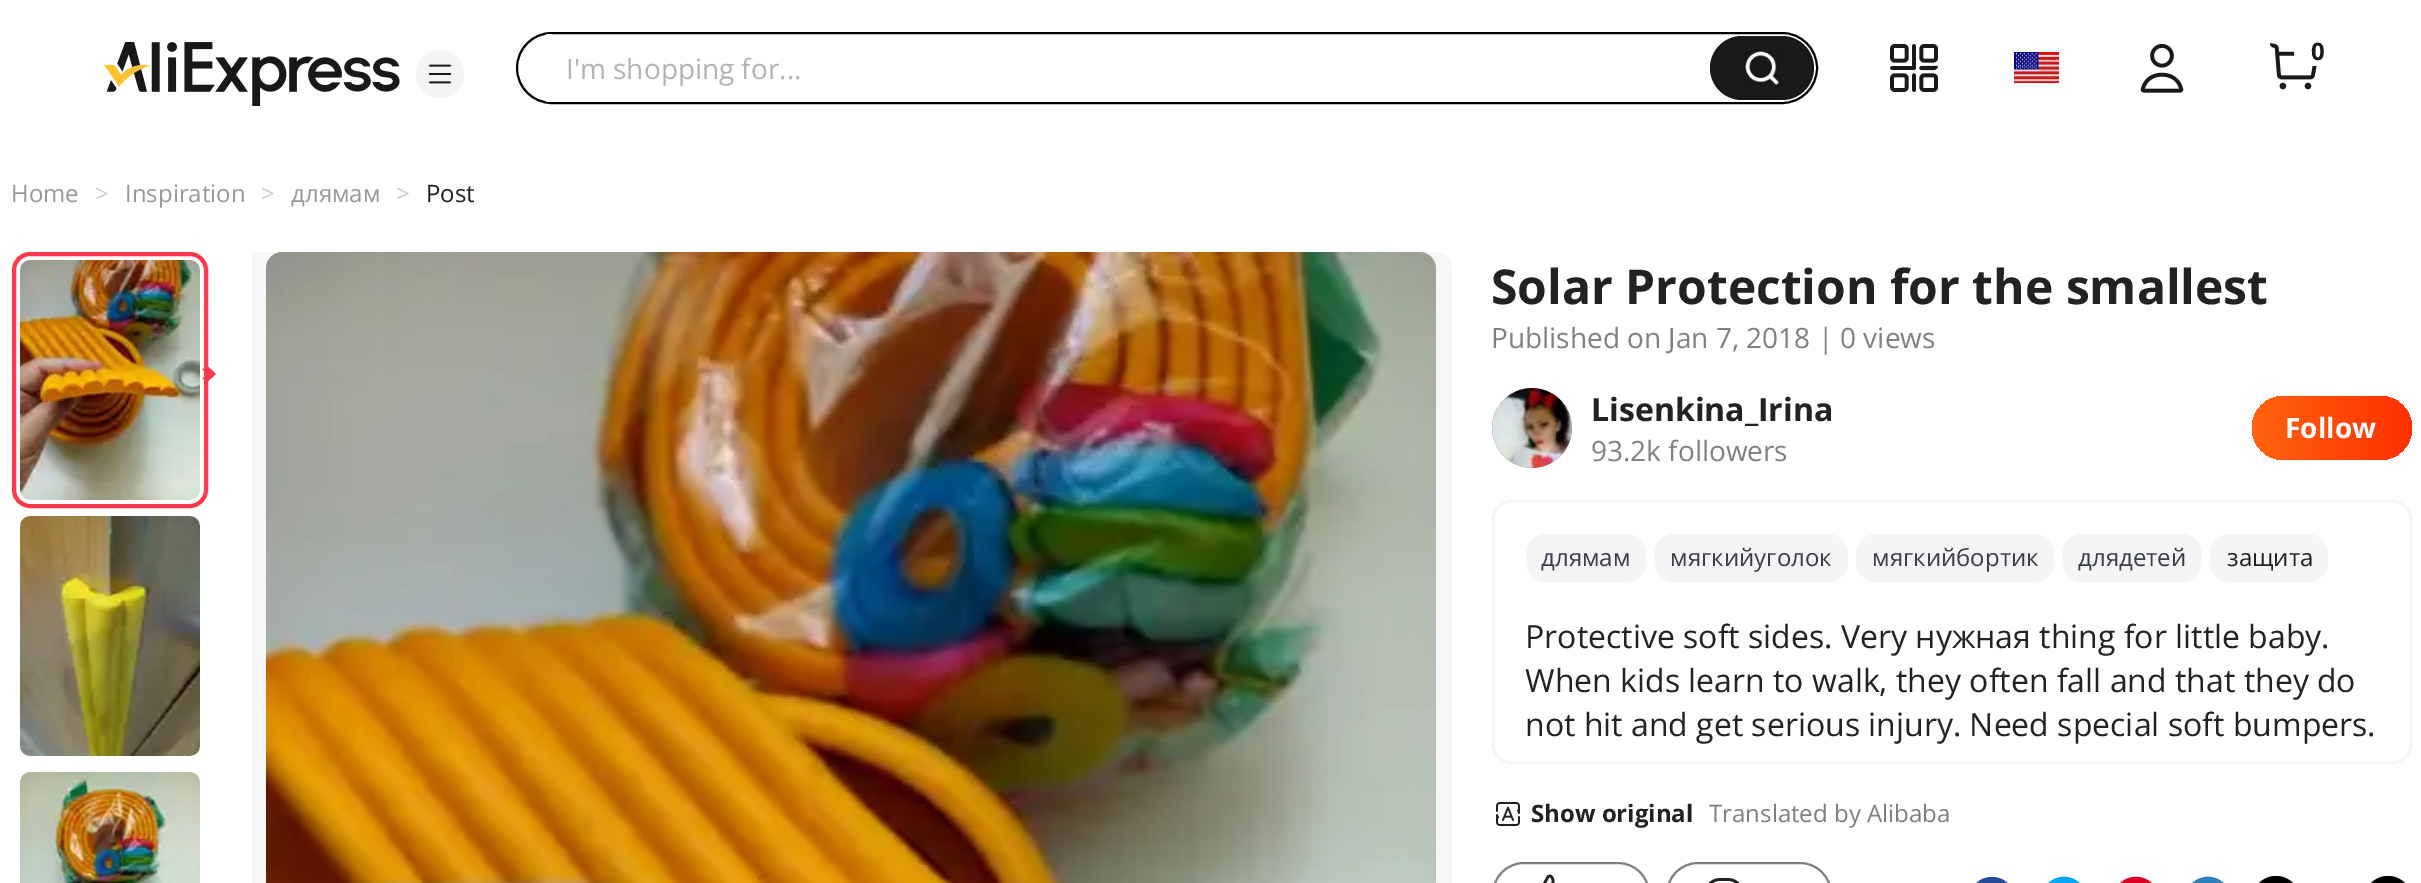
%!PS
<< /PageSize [2421 883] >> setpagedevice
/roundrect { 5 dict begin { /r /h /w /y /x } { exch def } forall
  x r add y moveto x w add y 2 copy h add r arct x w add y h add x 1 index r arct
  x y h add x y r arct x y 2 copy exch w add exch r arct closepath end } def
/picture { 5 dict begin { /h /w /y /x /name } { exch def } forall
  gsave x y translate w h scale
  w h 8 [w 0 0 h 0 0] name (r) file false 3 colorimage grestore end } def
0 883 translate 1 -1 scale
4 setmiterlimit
1 setgray
0 0 2421 883 rectfill
(img1.rgb) 104 42 296 64 picture
0.961 setgray
newpath 440 74 24 0 360 arc closepath fill
(img2.rgb) 429 64 22 20 picture
(img3.rgb) 1890 44 49 48 picture
(img4.rgb) 2014 52 46 32 picture
(img5.rgb) 2140 43 44 50 picture
(img6.rgb) 2270 43 47 47 picture
1 setgray
2294 38 48 28 14 roundrect fill
/OpenSans-Bold [24 0 0 -24 0 0] selectfont
0.098 setgray
2311 60 moveto (0) show
0 setgray
2 setlinewidth
517 33 1300 70 35 roundrect stroke
1 setgray
546 34 6 68 rectfill
/OpenSans-Regular [28 0 0 -28 0 0] selectfont
0.69 0.698 0.718 setrgbcolor
566 79 moveto (I'm shopping for...) show
0.098 setgray
1710 36 104 64 32 roundrect fill
(img7.rgb) 1745 51 34 34 picture
/OpenSans-Regular [24 0 0 -24 0 0] selectfont
0.6 setgray
11 202 moveto (Home) show
0.8 setgray
95 202 moveto (>) show
0.6 setgray
125 202 moveto (Inspiration) show
0.8 setgray
261 202 moveto (>) show
0.6 setgray
291 202 moveto (длямам) show
0.8 setgray
396 202 moveto (>) show
0.133 setgray
426 202 moveto (Post) show
(img8.rgb) 20 260 180 240 picture
0.992 0.22 0.31 setrgbcolor
4 setlinewidth
14 254 192 252 16 roundrect stroke
newpath 207 365.5 moveto 215.5 374 lineto 211.5 378.5 lineto 202.5 369.5 lineto closepath fill
newpath 211.5 369.5 moveto 215.5 374 lineto 207 382.5 lineto 202.5 378.5 lineto closepath fill
(img9.rgb) 20 516 180 240 picture
(img10.rgb) 20 772 180 111 picture
0.965 setgray
newpath 252 252 moveto 1436 252 lineto 1445 252 1452 259 1452 268 curveto 1452 883 lineto 1452 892 1445 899 1436 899 curveto 252 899 lineto closepath fill
(img11.rgb) 266 252 1170 631 picture
/OpenSans-Bold [48 0 0 -48 0 0] selectfont
0.133 setgray
1491 304 moveto (Solar Protection for the smallest) show
/OpenSans-Regular [28 0 0 -28 0 0] selectfont
0.502 setgray
1491 348 moveto (Published on Jan 7, 2018 | 0 views) show
newpath 1532 428 40 0 360 arc closepath fill
(img12.rgb) 1492 388 80 80 picture
/OpenSans-Bold [32 0 0 -32 0 0] selectfont
0.133 setgray
1591 421 moveto (Lisenkina_Irina) show
/OpenSans-Regular [28 0 0 -28 0 0] selectfont
0.502 setgray
1591 461 moveto (93.2k followers) show
gsave 2252 396 160 64 32 roundrect clip newpath
<< /ShadingType 2 /ColorSpace /DeviceRGB /Coords [2252 428 2412 428] /Extend [true true] /Function << /FunctionType 2 /Domain [0 1] /C0 [1 0.392 0.055] /C1 [1 0.188 0] /N 1 >> >> shfill grestore
/OpenSans-Bold [28 0 0 -28 0 0] selectfont
1 setgray
2285 438 moveto (Follow) show
0.961 setgray
2 setlinewidth
1493 501 918 262 19 roundrect stroke
1526 534 120 48 20 roundrect fill
/OpenSans-Regular [24 0 0 -24 0 0] selectfont
0.227 0.243 0.29 setrgbcolor
1541 566 moveto (длямам) show
0.961 setgray
1654 534 194 48 20 roundrect fill
0.227 0.243 0.29 setrgbcolor
1670 566 moveto (мягкийуголок) show
0.961 setgray
1856 534 198 48 20 roundrect fill
0.227 0.243 0.29 setrgbcolor
1872 566 moveto (мягкийбортик) show
0.961 setgray
2062 534 140 48 20 roundrect fill
0.227 0.243 0.29 setrgbcolor
2078 566 moveto (длядетей) show
0.961 setgray
2210 534 118 48 20 roundrect fill
0.133 setgray
2227 566 moveto (защита) show
/OpenSans-Regular [32 0 0 -32 0 0] selectfont
1525 648 moveto (Protective soft sides. Very нужная thing for little baby.) show
1525 692 moveto (When kids learn to walk, they often fall and that they do) show
1525 736 moveto (not hit and get serious injury. Need special soft bumpers.) show
(img13.rgb) 1496 802 24 24 picture
/OpenSans-Bold [24 0 0 -24 0 0] selectfont
1531 822 moveto (Show original) show
/OpenSans-Regular [24 0 0 -24 0 0] selectfont
0.502 setgray
1709 822 moveto (Translated by Alibaba) show
1493 863 156 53 31 roundrect stroke
(img14.rgb) 1543 874 12 9 picture
1667 863 164 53 31 roundrect stroke
(img15.rgb) 1708 878 32 5 picture
0.157 0.298 0.604 setrgbcolor
newpath 1992 877 moveto 2020 877 2024 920 1995 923 curveto 1995 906 lineto 2000 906 lineto 2001 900 lineto 1995 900 lineto 1995 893 1995 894 2001 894 curveto 2001 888 lineto 1990 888 1987 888 1987 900 curveto 1983 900 lineto 1983 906 lineto 1987 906 lineto 1987 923 lineto 1960 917 1965 877 1992 877 curveto closepath fill
(img16.rgb) 2048 876 32 7 picture
(img17.rgb) 2120 876 32 7 picture
(img18.rgb) 2192 876 32 7 picture
0 setgray
2252 876 48 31 24 roundrect fill
2364 876 48 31 24 roundrect fill
showpage
